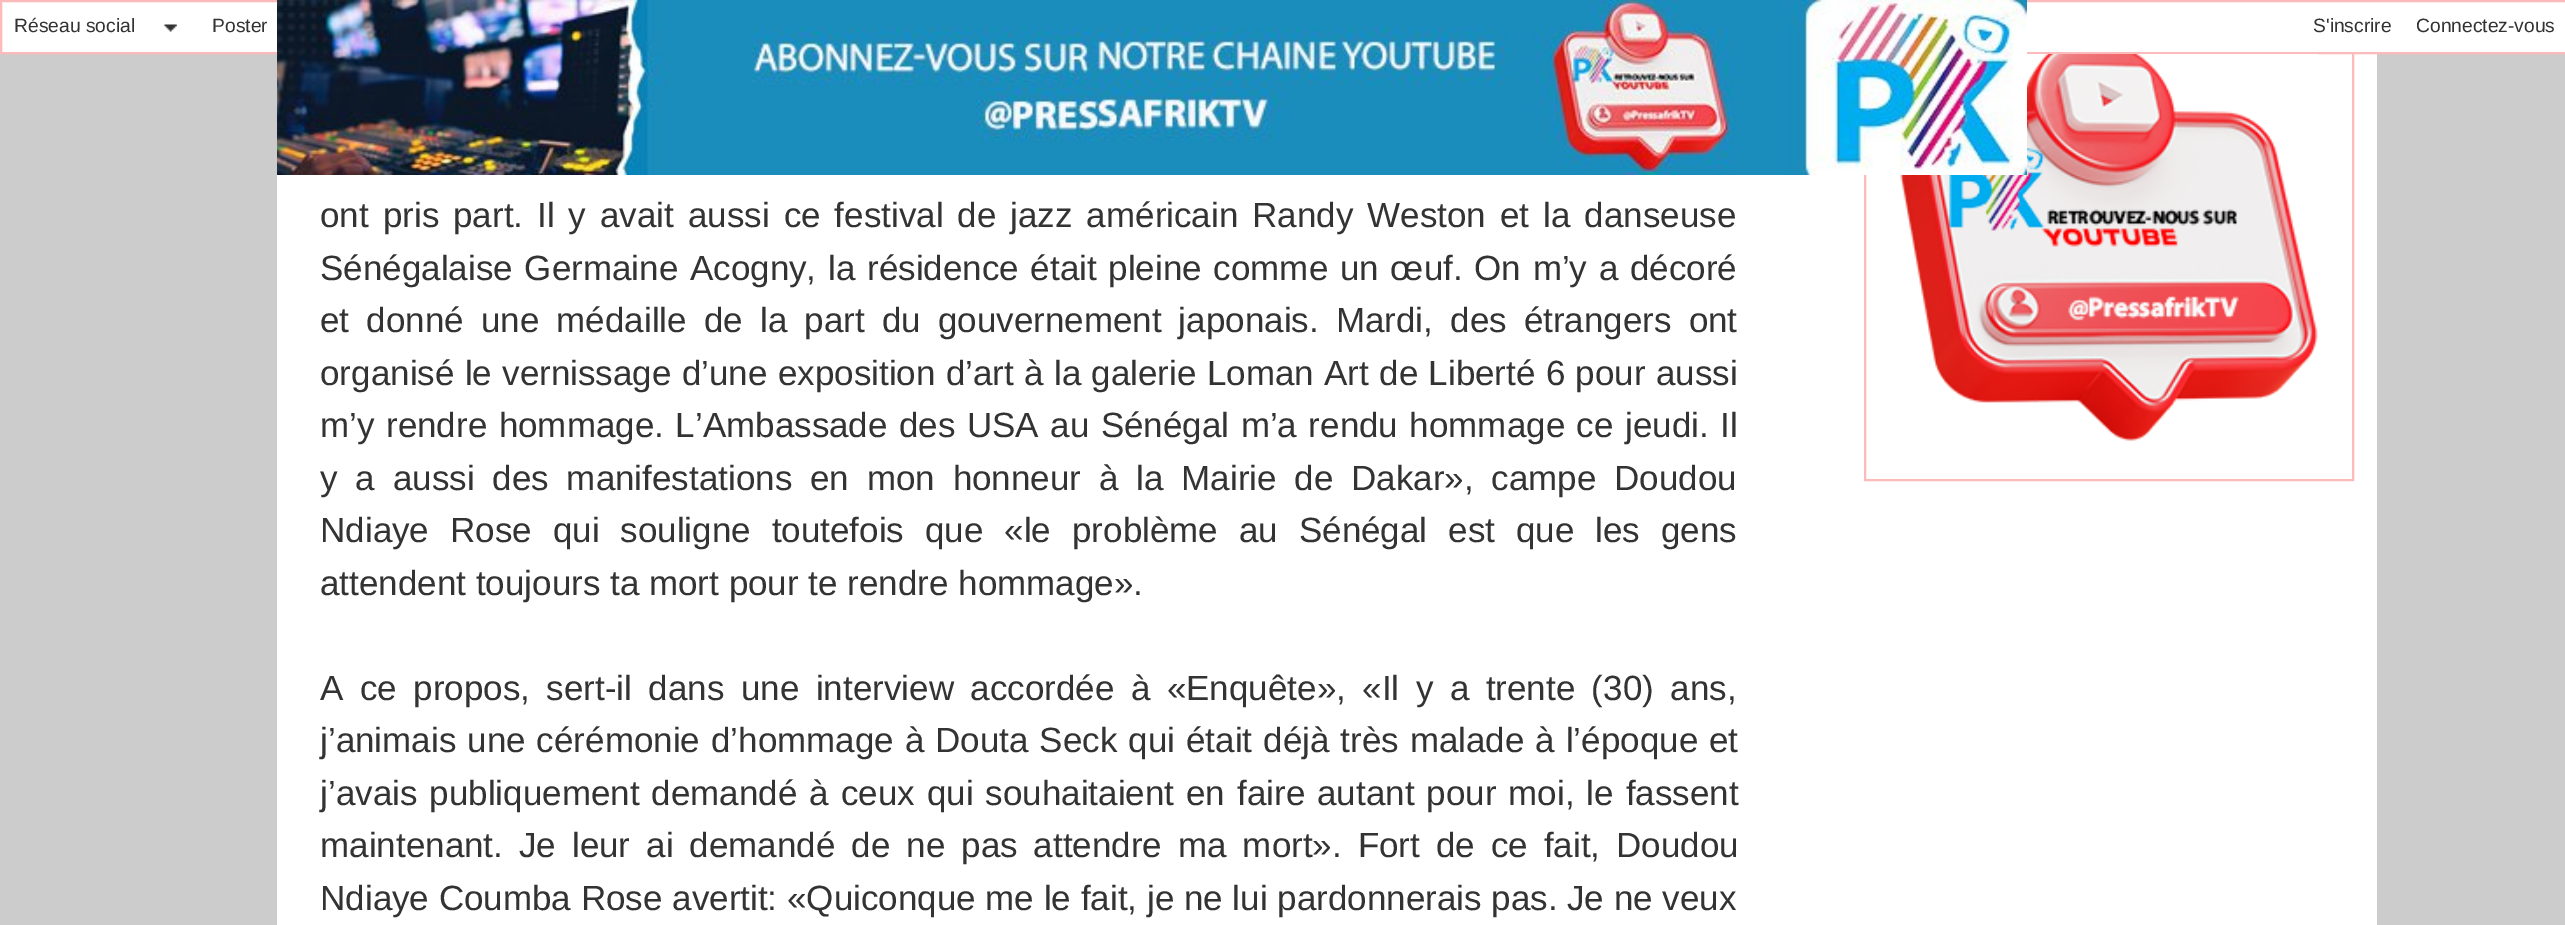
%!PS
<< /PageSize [2565 925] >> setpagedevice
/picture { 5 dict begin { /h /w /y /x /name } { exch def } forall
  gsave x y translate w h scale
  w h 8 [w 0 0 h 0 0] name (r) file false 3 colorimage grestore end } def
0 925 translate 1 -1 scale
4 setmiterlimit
0.8 setgray
0 0 2565 925 rectfill
1 setgray
277 54 2100 871 rectfill
0.992 0.729 0.729 setrgbcolor
2 setlinewidth
1865 24 488 456 rectstroke
1 setgray
newpath 1 1 moveto 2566 1 lineto 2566 53 lineto 1 53 lineto closepath gsave fill grestore
0.992 0.729 0.729 setrgbcolor
stroke
(img3.rgb) 1900 54 418 387 picture
(img1.rgb) 277 0 1750 175 picture
(img2.rgb) 164 24 13 8 picture
/LiberationSans-Regular [19.25 0 0 -19.25 0 0] selectfont
0.2 setgray
14 32 moveto (Réseau social) show
212 32 moveto (Poster) show
2313 32 moveto (S'inscrire) show
2416 32 moveto (Connectez-vous) show
/LiberationSans-Regular [35 0 0 -35 0 0] selectfont
320 227 moveto 4.25 0 32 (ont pris part. Il y avait aussi ce festival de jazz américain Randy Weston et la danseuse) widthshow
320 280 moveto 2 0 32 (Sénégalaise Germaine Acogny, la résidence était pleine comme un œuf. On m’y a décoré) widthshow
320 332 moveto 7.4 0 32 (et donné une médaille de la part du gouvernement japonais. Mardi, des étrangers ont) widthshow
320 385 moveto 0.6 0 32 (organisé le vernissage d’une exposition d’art à la galerie Loman Art de Liberté 6 pour aussi) widthshow
320 437 moveto 1.75 0 32 (m’y rendre hommage. L’Ambassade des USA au Sénégal m’a rendu hommage ce jeudi. Il) widthshow
320 490 moveto 8.1 0 32 (y a aussi des manifestations en mon honneur à la Mairie de Dakar», campe Doudou) widthshow
320 542 moveto 11.25 0 32 (Ndiaye Rose qui souligne toutefois que «le problème au Sénégal est que les gens) widthshow
320 595 moveto (attendent toujours ta mort pour te rendre hommage».) show
320 700 moveto 6.75 0 32 (A ce propos, sert-il dans une interview accordée à «Enquête», «Il y a trente \(30\) ans,) widthshow
320 752 moveto 1.25 0 32 (j’animais une cérémonie d’hommage à Douta Seck qui était déjà très malade à l’époque et) widthshow
320 805 moveto 2.25 0 32 (j’avais publiquement demandé à ceux qui souhaitaient en faire autant pour moi, le fassent) widthshow
320 857 moveto 6.25 0 32 (maintenant. Je leur ai demandé de ne pas attendre ma mort». Fort de ce fait, Doudou) widthshow
320 910 moveto (Ndiaye Coumba Rose avertit: «Quiconque me le fait, je ne lui pardonnerais pas. Je ne veux) show
showpage
